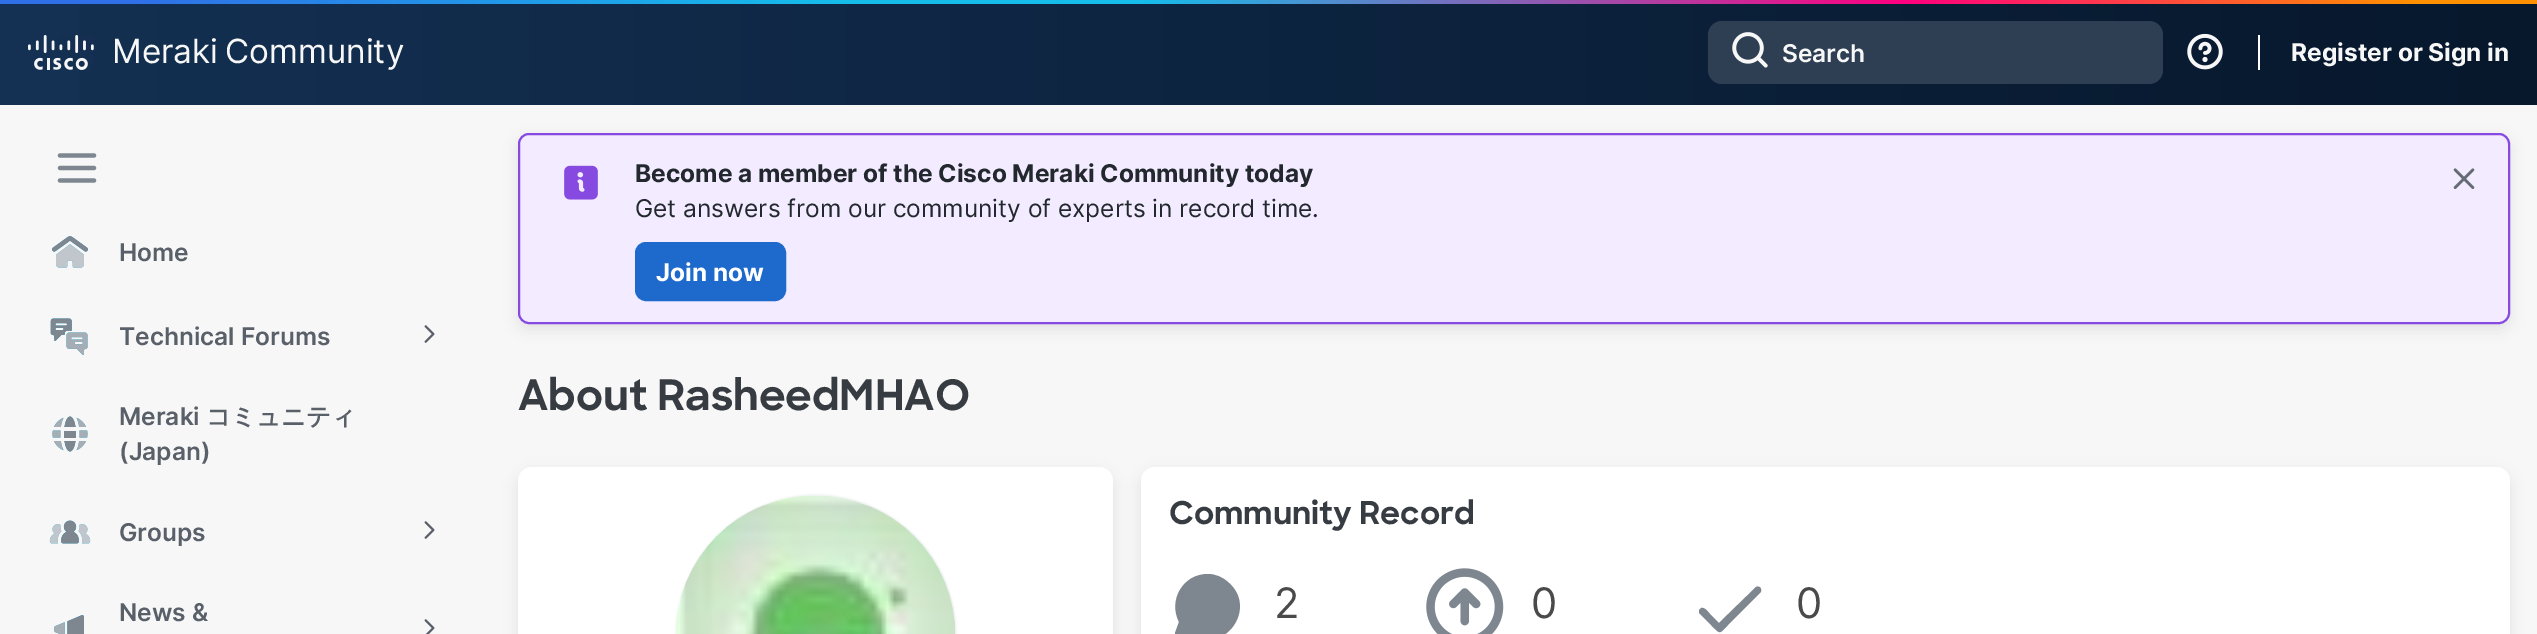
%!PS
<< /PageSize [2537 634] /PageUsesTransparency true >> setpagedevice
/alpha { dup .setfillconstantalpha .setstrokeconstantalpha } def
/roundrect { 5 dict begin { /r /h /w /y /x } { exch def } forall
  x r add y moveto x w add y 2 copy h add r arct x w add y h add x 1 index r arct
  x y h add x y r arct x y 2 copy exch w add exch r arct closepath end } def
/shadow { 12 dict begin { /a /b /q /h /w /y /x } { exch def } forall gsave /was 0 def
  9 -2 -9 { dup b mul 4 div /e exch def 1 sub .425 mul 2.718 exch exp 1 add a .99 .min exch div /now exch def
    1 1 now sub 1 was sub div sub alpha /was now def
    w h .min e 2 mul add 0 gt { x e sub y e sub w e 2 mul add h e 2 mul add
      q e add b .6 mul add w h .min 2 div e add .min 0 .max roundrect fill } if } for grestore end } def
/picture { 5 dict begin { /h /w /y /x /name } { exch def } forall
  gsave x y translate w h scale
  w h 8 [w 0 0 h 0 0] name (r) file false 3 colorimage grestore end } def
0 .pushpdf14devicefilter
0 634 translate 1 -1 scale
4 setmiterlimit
0.969 setgray
0 0 2537 634 rectfill
gsave newpath 0 4 moveto 2537 4 lineto 2537 105 lineto 0 105 lineto closepath clip newpath
<< /ShadingType 2 /ColorSpace /DeviceRGB /Coords [0 53 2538 52] /Extend [true true] /Function << /FunctionType 3 /Domain [0 1] /Functions [<< /FunctionType 2 /Domain [0 1] /C0 [0.078 0.188 0.322] /C1 [0.078 0.188 0.322] /N 1 >> << /FunctionType 2 /Domain [0 1] /C0 [0.078 0.188 0.322] /C1 [0.027 0.094 0.176] /N 1 >> << /FunctionType 2 /Domain [0 1] /C0 [0.027 0.094 0.176] /C1 [0.027 0.094 0.176] /N 1 >>] /Bounds [0.01 0.99] /Encode [0 1 0 1 0 1] >> >> shfill grestore
gsave newpath 0 0 moveto 2537 0 lineto 2537 4 lineto 0 4 lineto closepath clip newpath
<< /ShadingType 2 /ColorSpace /DeviceRGB /Coords [0 1.8 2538 1.7] /Extend [true true] /Function << /FunctionType 3 /Domain [0 1] /Functions [<< /FunctionType 2 /Domain [0 1] /C0 [0.188 0.439 0.906] /C1 [0.188 0.439 0.906] /N 1 >> << /FunctionType 2 /Domain [0 1] /C0 [0.188 0.439 0.906] /C1 [0.086 0.741 0.922] /N 1 >> << /FunctionType 2 /Domain [0 1] /C0 [0.086 0.741 0.922] /C1 [0.086 0.741 0.922] /N 1 >> << /FunctionType 2 /Domain [0 1] /C0 [0.086 0.741 0.922] /C1 [1 0 0.498] /N 1 >> << /FunctionType 2 /Domain [0 1] /C0 [1 0 0.498] /C1 [1 0.565 0] /N 1 >> << /FunctionType 2 /Domain [0 1] /C0 [1 0.565 0] /C1 [1 0.565 0] /N 1 >>] /Bounds [0.05 0.33 0.45 0.75 0.95] /Encode [0 1 0 1 0 1 0 1 0 1 0 1] >> >> shfill grestore
(img1.rgb) 28 35 66 35 picture
/Inter-Regular [33.25 0 0 -33.25 0 0] selectfont
112 63 moveto (Meraki) show
225 63 moveto (Community) show
0.18 0.247 0.329 setrgbcolor
1708 21 455 63 14 roundrect fill
(img2.rgb) 1732 32 36 36 picture
/Inter-SemiBold [24.5 0 0 -24.5 0 0] selectfont
0.969 setgray
1782 62 moveto (Search) show
(img3.rgb) 2187 33 36 37 picture
1 setgray
2258 35 2 35 rectfill
/Inter-Bold [24.5 0 0 -24.5 0 0] selectfont
0.969 setgray
2291 61 moveto (Register or Sign in) show
0.494 0.525 0.561 setrgbcolor
4.2 setlinewidth
1 setlinecap
newpath 60 155.5 moveto 94 155.5 lineto 60 168 moveto 94 168 lineto 60 180.5 moveto 94 180.5 lineto stroke
(img4.rgb) 52 236 36 32 picture
(img5.rgb) 52 236 36 32 picture
/Inter-SemiBold [24.5 0 0 -24.5 0 0] selectfont
0.349 0.376 0.412 setrgbcolor
119 261 moveto (Home) show
(img6.rgb) 50 318 38 37 picture
(img7.rgb) 50 318 38 37 picture
119 345 moveto (Technical Forums) show
(img8.rgb) 424 325 11 18 picture
(img9.rgb) 52 416 36 36 picture
(img10.rgb) 52 416 36 36 picture
119 425 moveto (Meraki) show
/WenQuanYiZenHei-Bold [24.5 0 0 -24.5 0 0] selectfont
206 425 moveto (コミュニティ) show
/Inter-SemiBold [24.5 0 0 -24.5 0 0] selectfont
119 460 moveto (\(Japan\)) show
(img11.rgb) 49 520 42 24 picture
(img12.rgb) 49 520 42 24 picture
119 541 moveto (Groups) show
(img8.rgb) 424 521 11 18 picture
119 621 moveto (News &) show
(img13.rgb) 54 615 30 19 picture
(img14.rgb) 54 615 30 19 picture
(img15.rgb) 424 619 11 15 picture
0 setgray
518 138 1992 191 11 7 0.08 shadow
0.953 0.922 1 setrgbcolor
519 134 1990 189 10 roundrect gsave fill grestore
0.525 0.29 0.878 setrgbcolor
2 setlinewidth
0 setlinecap
stroke
(img16.rgb) 564 165 34 35 picture
/Inter-Bold [24.5 0 0 -24.5 0 0] selectfont
0.137 0.157 0.18 setrgbcolor
635 182 moveto (Become a member of the Cisco Meraki Community today) show
/Inter-Regular [24.5 0 0 -24.5 0 0] selectfont
635 217 moveto (Get answers from our community of experts in record time.) show
0.114 0.412 0.8 setrgbcolor
637 244 147 55 9 roundrect gsave fill grestore
4 setlinewidth
stroke
/Inter-Bold [24.5 0 0 -24.5 0 0] selectfont
1 setgray
656 281 moveto (Join now) show
(img17.rgb) 2453 168 22 21 picture
/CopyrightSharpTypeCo-Bold [42 0 0 -42 0 0] selectfont
0.216 0.235 0.259 setrgbcolor
518 410 moveto (About RasheedMHAO) show
0 setgray
518 473 595 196 14 7 0.08 shadow
1 setgray
518 467 595 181 14 roundrect fill
0.882 0.894 0.91 setrgbcolor
676 495 280 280 140 1 1 shadow
(img18.rgb) 675 495 281 139 picture
0 setgray
1141 473 1369 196 14 7 0.08 shadow
1 setgray
1141 467 1369 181 14 roundrect fill
/CopyrightSharpTypeCo-Bold [31.5 0 0 -31.5 0 0] selectfont
0.216 0.235 0.259 setrgbcolor
1169 524 moveto (Community Record) show
0.494 0.525 0.561 setrgbcolor
newpath 1208 574 moveto 1183 574 1168 600 1179 622 curveto 1175 633 lineto 1175 634 1175 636 1176 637 curveto 1180 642 1188 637 1193 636 curveto 1226 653 1257 608 1229 583 curveto 1223 577 1215 574 1208 574 curveto closepath fill
/Inter-Regular [42 0 0 -42 0 0] selectfont
0.29 setgray
1274 618 moveto (2) show
(img19.rgb) 1426 568 78 66 picture
1531 618 moveto (0) show
0.494 0.525 0.561 setrgbcolor
newpath 1760 593 moveto 1728 625 lineto 1719 634 1721 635 1711 625 curveto 1699 613 lineto 1699 610 lineto 1701 608 lineto 1705 607 1708 612 1710 614 curveto 1719 623 lineto 1756 587 lineto 1760 585 1763 590 1760 593 curveto closepath fill
0.29 setgray
1796 618 moveto (0) show
.poppdf14devicefilter showpage
